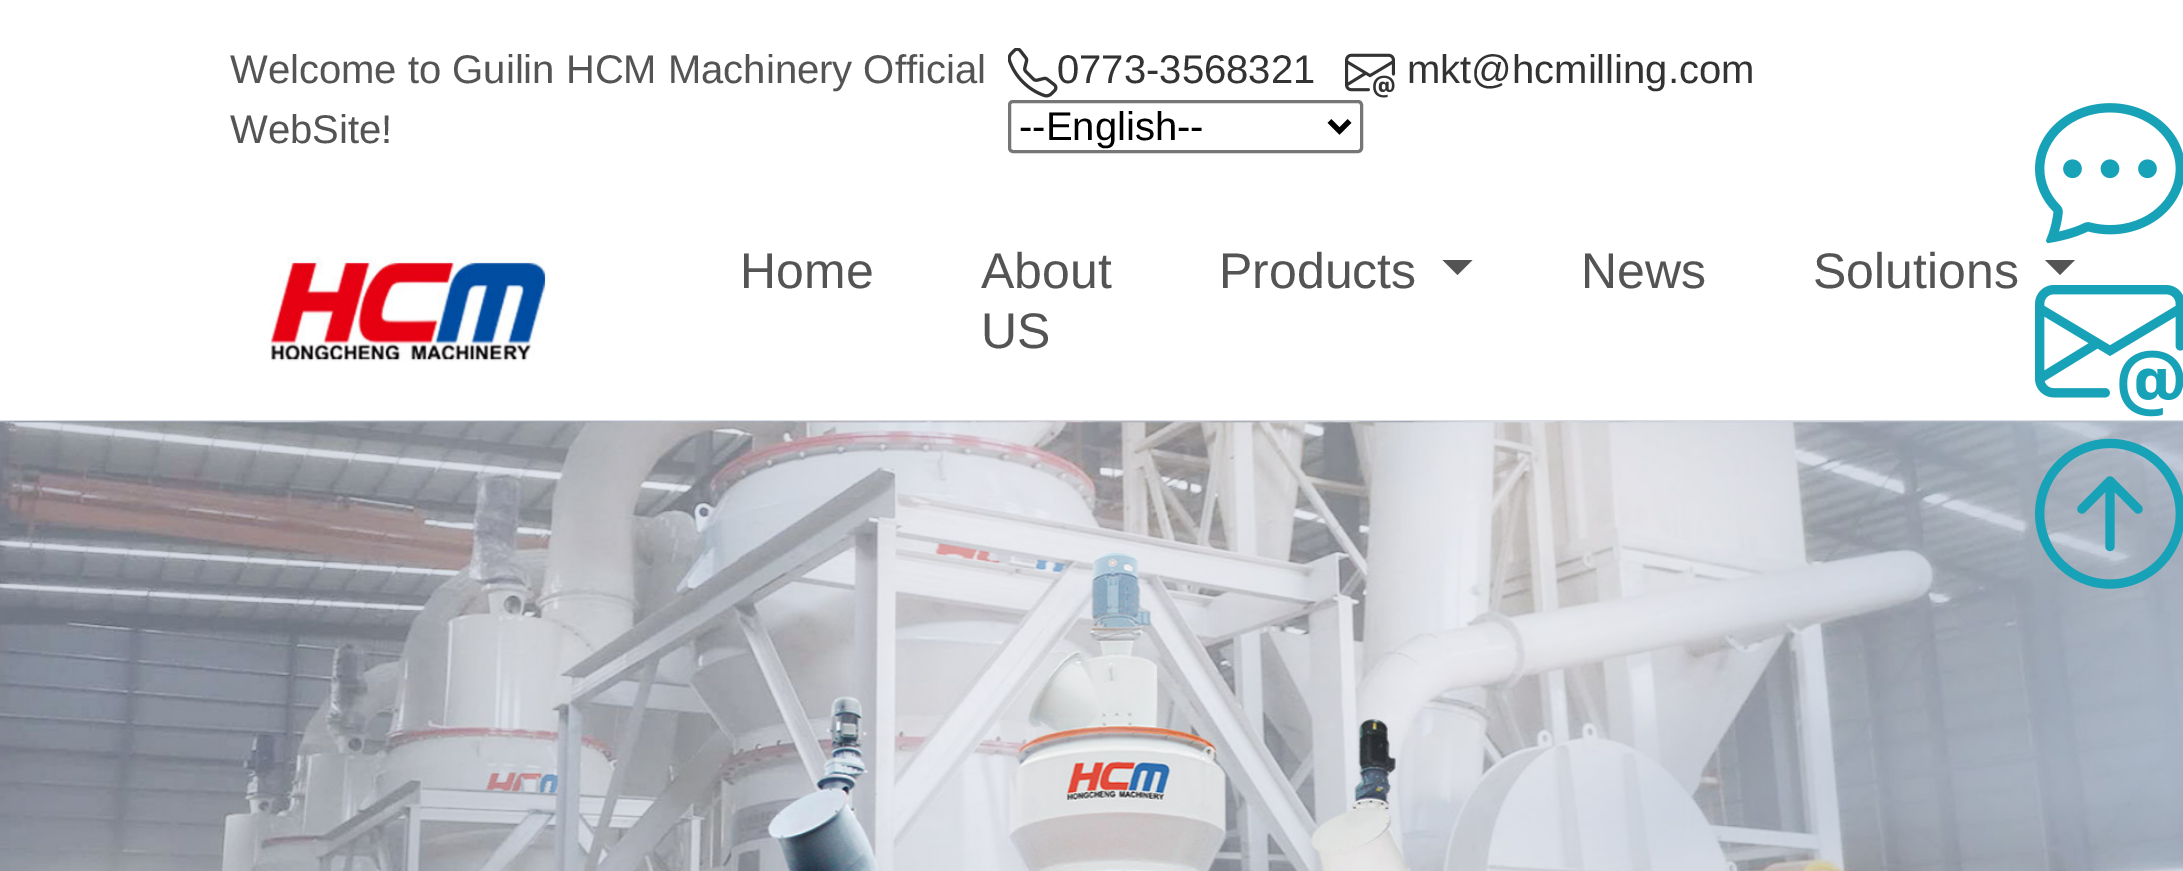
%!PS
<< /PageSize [2183 871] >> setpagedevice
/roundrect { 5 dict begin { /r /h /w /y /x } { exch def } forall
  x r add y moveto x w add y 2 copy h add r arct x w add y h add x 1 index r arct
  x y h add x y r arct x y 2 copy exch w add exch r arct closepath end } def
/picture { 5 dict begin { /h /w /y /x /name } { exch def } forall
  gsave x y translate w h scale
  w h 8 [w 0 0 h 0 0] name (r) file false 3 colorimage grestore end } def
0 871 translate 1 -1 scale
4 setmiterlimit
1 setgray
0 0 2183 871 rectfill
/LiberationSans-Regular [40 0 0 -40 0 0] selectfont
0.329 setgray
230 83 moveto (Welcome to Guilin HCM Machinery Official) show
230 143 moveto (WebSite!) show
(img1.rgb) 1008 48 50 50 picture
0.2 setgray
1057 83 moveto (0773-3568321) show
(img2.rgb) 1345 53 50 45 picture
1407 83 moveto (mkt@hcmilling.com) show
0.463 setgray
3 setlinewidth
1009.5 101.5 352 50 3.5 roundrect stroke
0 setgray
5 setlinewidth
newpath 1329.5 121 moveto 1339.5 131 lineto 1349.5 121 lineto stroke
1019 140 moveto (--English--) show
(img3.rgb) 270 256 276 106 picture
/LiberationSans-Regular [50 0 0 -50 0 0] selectfont
0.329 setgray
740 288 moveto (Home) show
981 288 moveto (About) show
981 348 moveto (US) show
1219 288 moveto (Products) show
newpath 1442.5 260 moveto 1472.5 260 lineto 1457.5 275 lineto closepath fill
1581 288 moveto (News) show
1813 288 moveto (Solutions) show
newpath 2045 260 moveto 2075 260 lineto 2060 275 lineto closepath fill
(img4.rgb) 2035 103 148 141 picture
(img5.rgb) 2035 285 148 132 picture
(img7.rgb) 0 420 2183 451 picture
(img6.rgb) 2035 438 148 151 picture
showpage
